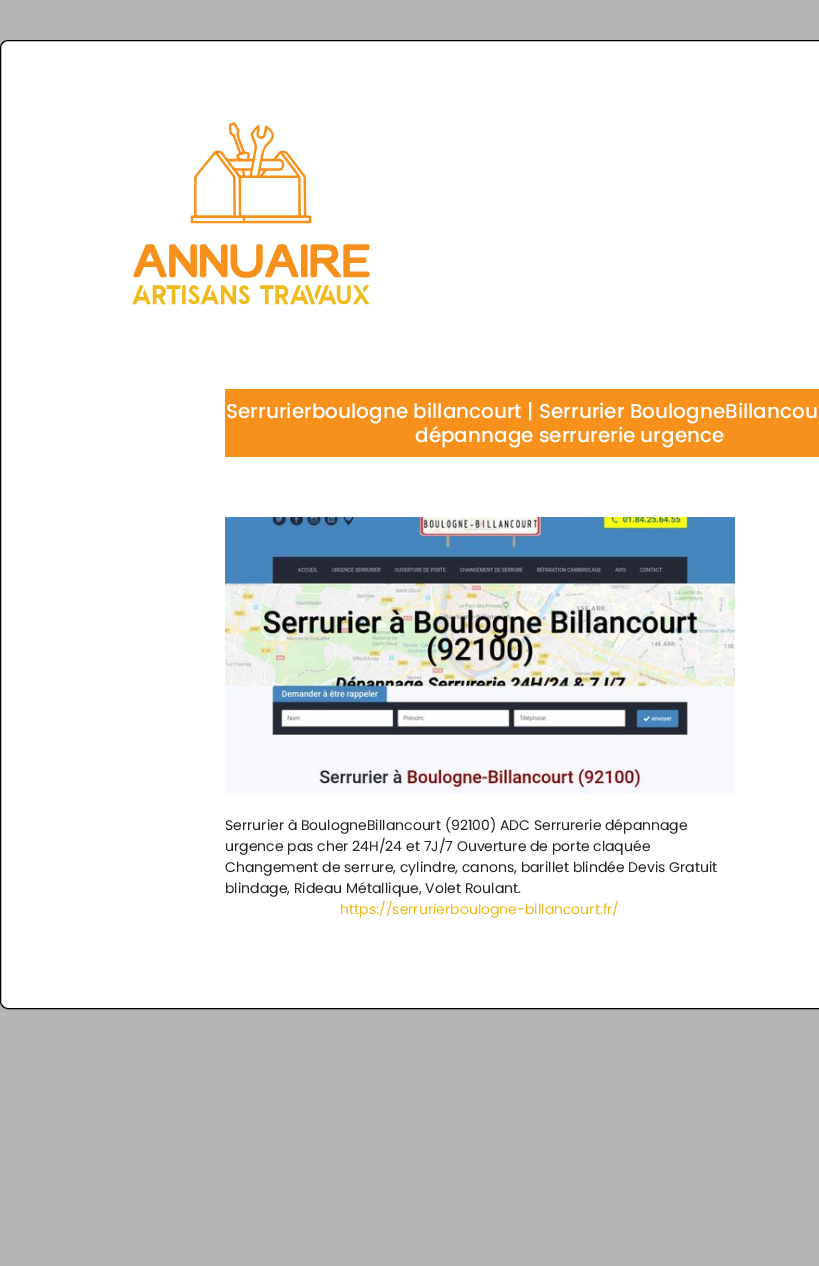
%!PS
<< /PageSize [819 1266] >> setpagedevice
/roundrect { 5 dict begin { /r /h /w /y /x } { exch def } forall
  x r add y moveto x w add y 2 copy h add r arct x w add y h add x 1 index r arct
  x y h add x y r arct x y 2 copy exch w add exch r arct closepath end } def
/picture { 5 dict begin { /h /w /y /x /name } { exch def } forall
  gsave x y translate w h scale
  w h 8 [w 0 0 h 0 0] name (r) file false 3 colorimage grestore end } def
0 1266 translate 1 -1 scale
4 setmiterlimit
0.714 0.706 0.71 setrgbcolor
0 0 819 1266 rectfill
1 setgray
0.5 40.5 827 968 7.5 roundrect gsave fill grestore
0 setgray
stroke
(img1.rgb) 132 122 238 183 picture
0.973 0.569 0.106 setrgbcolor
225 389 594 68 rectfill
/Poppins-Medium [20 0 0 -20 0 0] selectfont
1 setgray
226 418 moveto (Serrurierboulogne billancourt | Serrurier BoulogneBillancou) show
415 442 moveto (dépannage serrurerie urgence) show
(img2.rgb) 225 517 510 278 picture
/Poppins-Regular [14 0 0 -14 0 0] selectfont
0.129 0.145 0.161 setrgbcolor
225 830 moveto (Serrurier à BoulogneBillancourt \(92100\) ADC Serrurerie dépannage) show
225 851 moveto (urgence pas cher 24H/24 et 7J/7 Ouverture de porte claquée) show
225 872 moveto (Changement de serrure, cylindre, canons, barillet blindée Devis Gratuit) show
225 893 moveto (blindage, Rideau Métallique, Volet Roulant.) show
0.941 0.729 0.11 setrgbcolor
340 914 moveto (https://serrurierboulogne-billancourt.fr/) show
showpage
